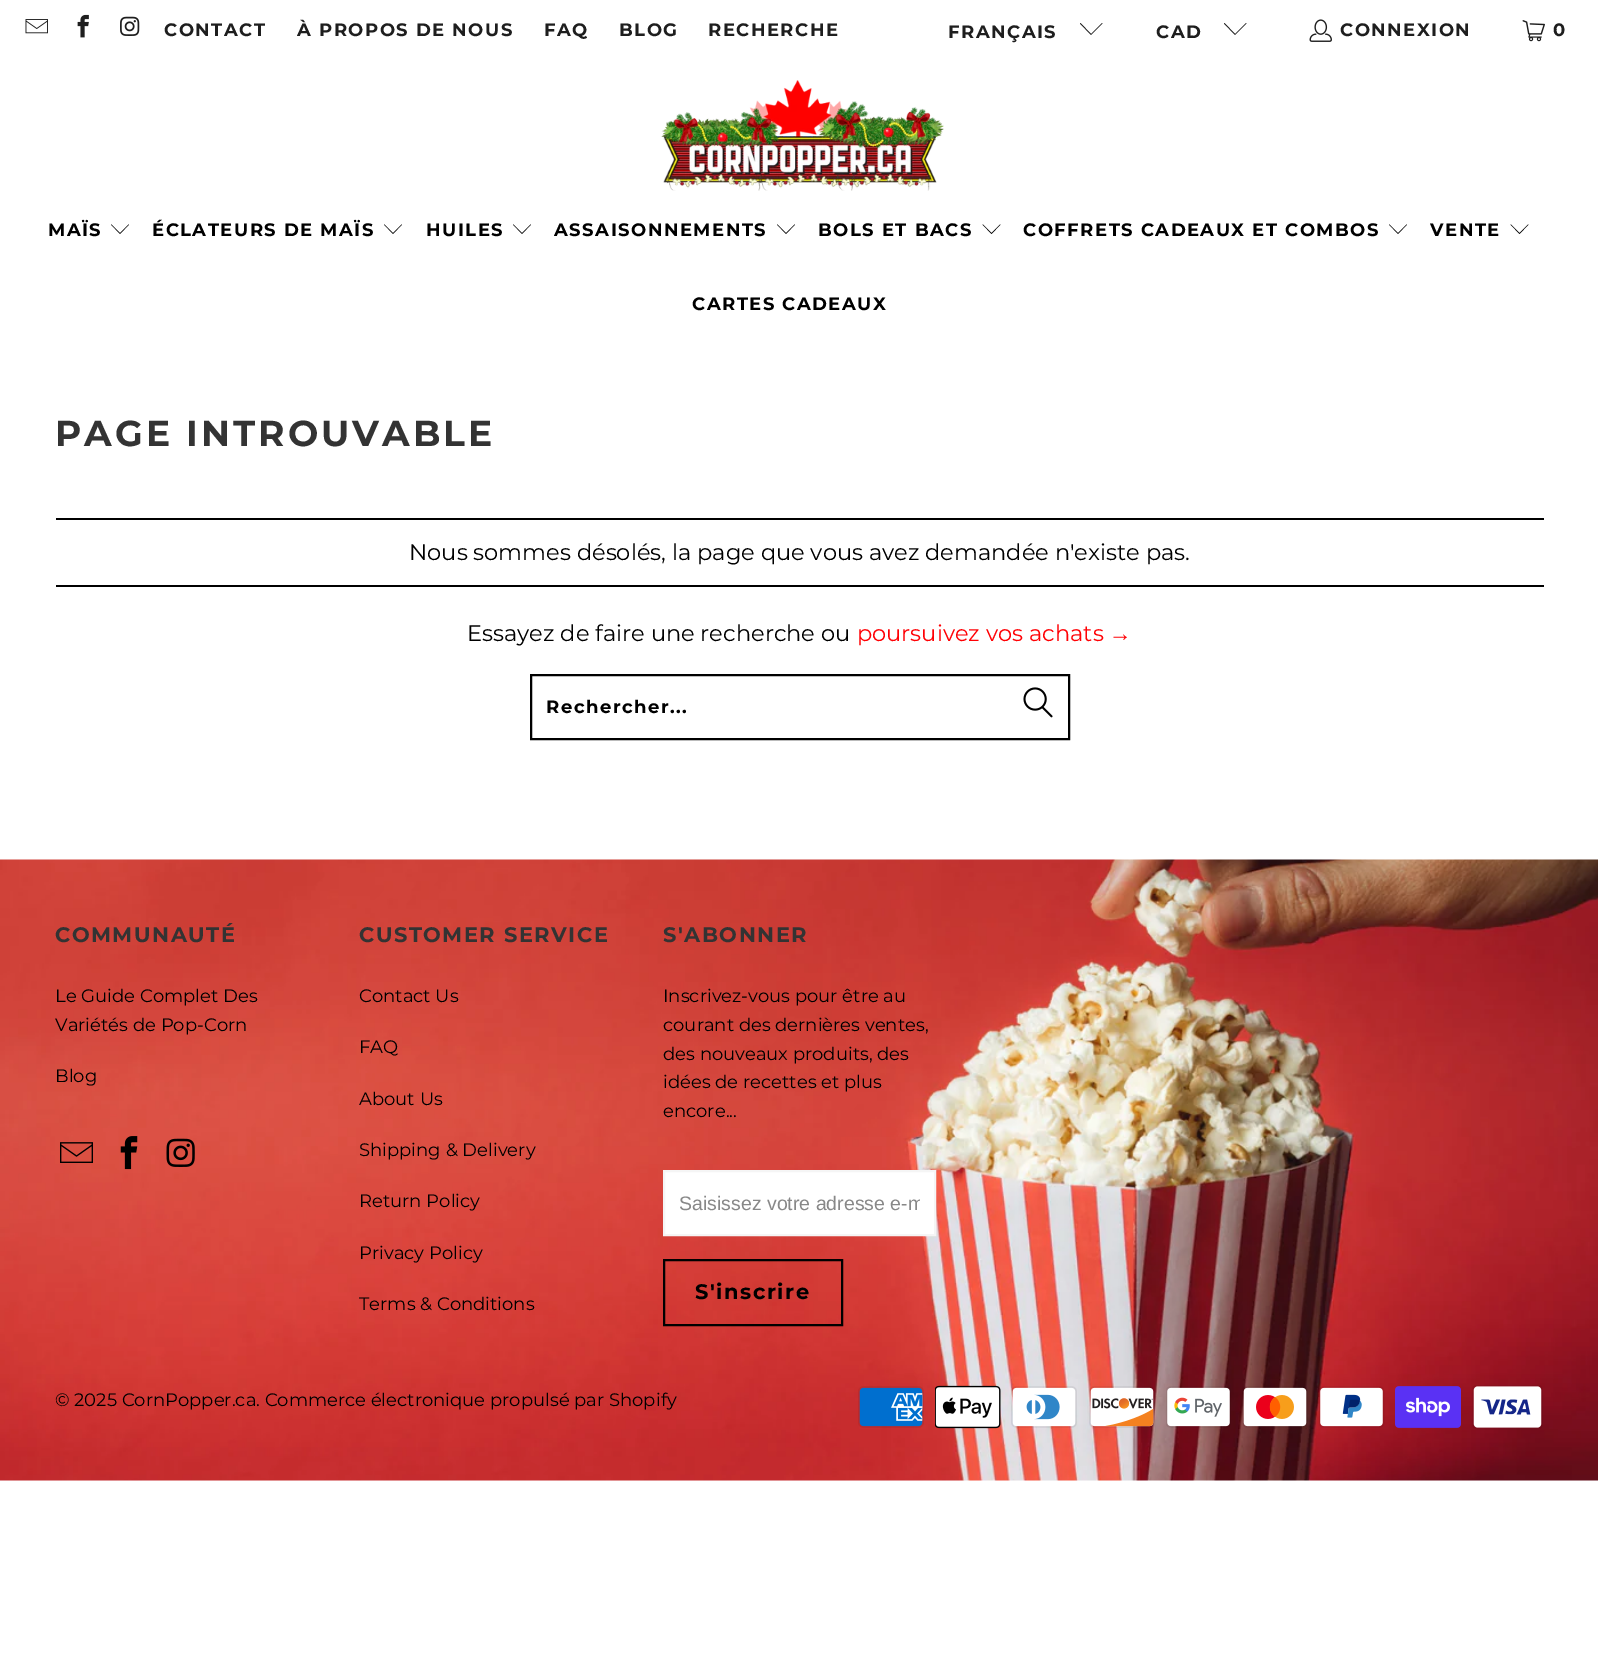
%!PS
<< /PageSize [1598 1660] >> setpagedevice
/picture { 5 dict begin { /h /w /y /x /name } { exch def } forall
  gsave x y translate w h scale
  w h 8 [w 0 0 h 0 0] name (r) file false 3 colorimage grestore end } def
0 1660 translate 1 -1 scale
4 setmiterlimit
1 setgray
0 0 1598 1660 rectfill
(img1.rgb) 25 19 23 15 picture
(img2.rgb) 77 14 12 24 picture
(img3.rgb) 120 16 20 20 picture
/Montserrat-Bold [18 0 0 -18 0 0] selectfont
0.118 setgray
164 36 moveto 1.5 0 (CONTACT) ashow
297 36 moveto 1.5 0 (À PROPOS DE NOUS) ashow
544 36 moveto 1.5 0 (FAQ) ashow
619 36 moveto 1.5 0 (BLOG) ashow
708 36 moveto 1.5 0 (RECHERCHE) ashow
948 38 moveto 1.5 0 (FRANÇAIS) ashow
newpath 1091 35 moveto 1080 23.5 lineto 1080.5 23 lineto 1091 34 lineto 1102 23 lineto 1102.5 23.5 lineto closepath fill
1156 38 moveto 1.5 0 (CAD) ashow
newpath 1235 35 moveto 1224 23.5 lineto 1224.5 23 lineto 1235 34 lineto 1246 23 lineto 1246.5 23.5 lineto closepath fill
(img4.rgb) 1309 19 23 23 picture
1340 36 moveto 1.5 0 (CONNEXION) ashow
(img5.rgb) 1522 20 23 22 picture
1553 36 moveto 1.5 0 (0) ashow
(img6.rgb) 661 80 283 111 picture
0 setgray
48 236 moveto 1.5 0 (MAÏS) ashow
newpath 120 234 moveto 111 224.5 lineto 111.5 224.5 lineto 120 233 lineto 128.5 224.5 lineto 129 224.5 lineto closepath fill
152 236 moveto 1.5 0 (ÉCLATEURS DE MAÏS) ashow
newpath 393 234 moveto 384 224.5 lineto 384.5 224.5 lineto 393 233 lineto 401.5 224.5 lineto 402 224.5 lineto closepath fill
426 236 moveto 1.5 0 (HUILES) ashow
newpath 522 234 moveto 513 224.5 lineto 513.5 224.5 lineto 522 233 lineto 530.5 224.5 lineto 531 224.5 lineto closepath fill
554 236 moveto 1.5 0 (ASSAISONNEMENTS) ashow
newpath 786 234 moveto 777 224.5 lineto 777.5 224.5 lineto 786 233 lineto 794.5 224.5 lineto 795 224.5 lineto closepath fill
818 236 moveto 1.5 0 (BOLS ET BACS) ashow
newpath 991.5 234 moveto 982.5 224.5 lineto 983 224.5 lineto 991.5 233 lineto 1000 224.5 lineto 1000.5 224.5 lineto closepath fill
1023 236 moveto 1.5 0 (COFFRETS CADEAUX ET COMBOS) ashow
newpath 1398 234 moveto 1389 224.5 lineto 1389.5 224.5 lineto 1398 233 lineto 1406.5 224.5 lineto 1407 224.5 lineto closepath fill
1430 236 moveto 1.5 0 (VENTE) ashow
newpath 1519.5 234 moveto 1510.5 224.5 lineto 1511 224.5 lineto 1519.5 233 lineto 1528 224.5 lineto 1528.5 224.5 lineto closepath fill
692 310 moveto 1.5 0 (CARTES CADEAUX) ashow
/Montserrat-Bold [36 0 0 -36 0 0] selectfont
0.2 setgray
55 446 moveto 3 0 (PAGE INTROUVABLE) ashow
0 setgray
56 518 1488 2 rectfill
56 585 1488 2 rectfill
/Montserrat-Regular [22.5 0 0 -22.5 0 0] selectfont
409 560 moveto (Nous sommes désolés, la page que vous avez demandée n'existe pas.) show
467 641 moveto (Essayez de faire une recherche ou) show
1 0.004 0.02 setrgbcolor
857 641 moveto (poursuivez vos achats) show
/LiberationSans-Regular [22.5 0 0 -22.5 0 0] selectfont
1109 641 moveto (→) show
0 setgray
2 setlinewidth
531 675 538 64 rectstroke
/Montserrat-Bold [18 0 0 -18 0 0] selectfont
546 713 moveto 1.5 0 (Rechercher...) ashow
(img7.rgb) 1023 687 30 31 picture
(img8.rgb) 0 859 1598 622 picture
/Montserrat-Bold [21 0 0 -21 0 0] selectfont
0.2 setgray
55 942 moveto 1.5 0 (COMMUNAUTÉ) ashow
/Montserrat-Regular [18 0 0 -18 0 0] selectfont
0 setgray
55 1002 moveto (Le Guide Complet Des) show
55 1031 moveto (Variétés de Pop-Corn) show
55 1082 moveto (Blog) show
(img9.rgb) 60 1142 33 21 picture
(img10.rgb) 120 1136 18 34 picture
(img11.rgb) 166 1138 29 29 picture
/Montserrat-Bold [21 0 0 -21 0 0] selectfont
0.2 setgray
359 942 moveto 1.5 0 (CUSTOMER SERVICE) ashow
/Montserrat-Regular [18 0 0 -18 0 0] selectfont
0 setgray
359 1002 moveto (Contact Us) show
359 1053 moveto (FAQ) show
359 1105 moveto (About Us) show
359 1156 moveto (Shipping & Delivery) show
359 1207 moveto (Return Policy) show
359 1259 moveto (Privacy Policy) show
359 1310 moveto (Terms & Conditions) show
/Montserrat-Bold [21 0 0 -21 0 0] selectfont
0.2 setgray
663 942 moveto 1.5 0 (S'ABONNER) ashow
/Montserrat-Regular [18 0 0 -18 0 0] selectfont
0 setgray
663 1002 moveto (Inscrivez-vous pour être au) show
663 1031 moveto (courant des dernières ventes,) show
663 1060 moveto (des nouveaux produits, des) show
663 1088 moveto (idées de recettes et plus) show
663 1117 moveto (encore...) show
1 setgray
newpath 664 1171 moveto 935 1171 lineto 935 1235 lineto 664 1235 lineto closepath gsave fill grestore
0.961 setgray
stroke
gsave
680 1193 240 22 rectclip
/LiberationSans-Regular [19.5 0 0 -19.5 0 0] selectfont
0.533 setgray
679 1210 moveto (Saisissez votre adresse e-m) show
grestore
0 setgray
664 1260 178 65 rectstroke
/Montserrat-Bold [21 0 0 -21 0 0] selectfont
695 1299 moveto 1.5 0 (S'inscrire) ashow
/Montserrat-Regular [18 0 0 -18 0 0] selectfont
55 1406 moveto (© 2025 CornPopper.ca) show
256 1406 moveto (. Commerce électronique propulsé par Shopify) show
(img12.rgb) 858 1386 66 42 picture
(img13.rgb) 935 1385 66 44 picture
(img14.rgb) 1011 1386 66 42 picture
(img15.rgb) 1089 1386 66 42 picture
(img16.rgb) 1166 1386 65 42 picture
(img17.rgb) 1242 1386 66 42 picture
(img18.rgb) 1319 1386 66 42 picture
(img19.rgb) 1395 1386 66 42 picture
(img20.rgb) 1472 1385 71 45 picture
showpage
